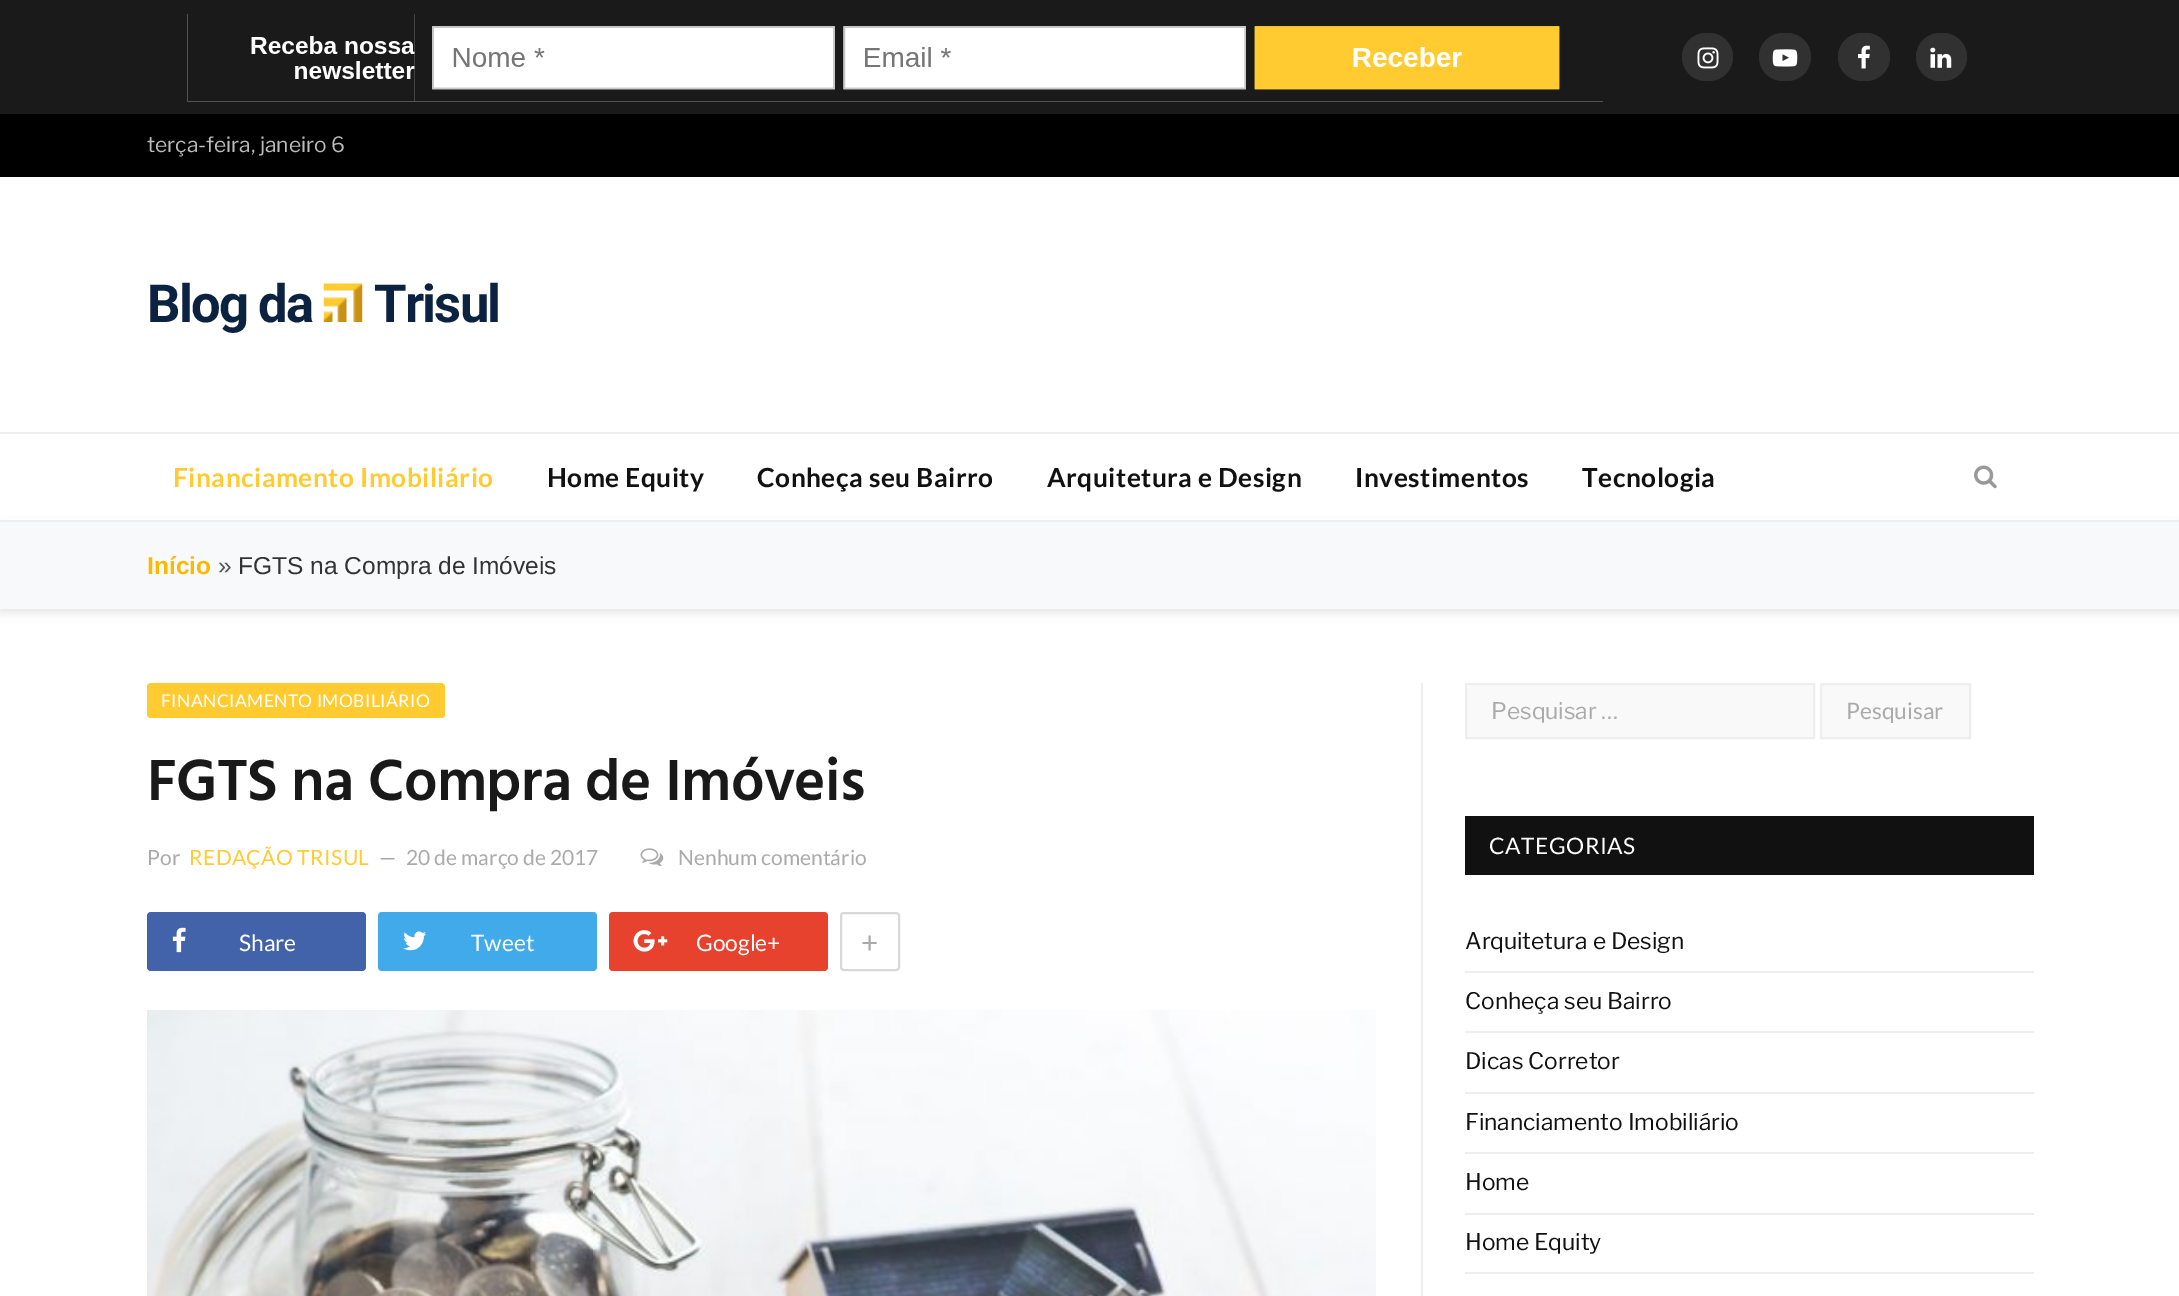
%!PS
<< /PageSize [2179 1296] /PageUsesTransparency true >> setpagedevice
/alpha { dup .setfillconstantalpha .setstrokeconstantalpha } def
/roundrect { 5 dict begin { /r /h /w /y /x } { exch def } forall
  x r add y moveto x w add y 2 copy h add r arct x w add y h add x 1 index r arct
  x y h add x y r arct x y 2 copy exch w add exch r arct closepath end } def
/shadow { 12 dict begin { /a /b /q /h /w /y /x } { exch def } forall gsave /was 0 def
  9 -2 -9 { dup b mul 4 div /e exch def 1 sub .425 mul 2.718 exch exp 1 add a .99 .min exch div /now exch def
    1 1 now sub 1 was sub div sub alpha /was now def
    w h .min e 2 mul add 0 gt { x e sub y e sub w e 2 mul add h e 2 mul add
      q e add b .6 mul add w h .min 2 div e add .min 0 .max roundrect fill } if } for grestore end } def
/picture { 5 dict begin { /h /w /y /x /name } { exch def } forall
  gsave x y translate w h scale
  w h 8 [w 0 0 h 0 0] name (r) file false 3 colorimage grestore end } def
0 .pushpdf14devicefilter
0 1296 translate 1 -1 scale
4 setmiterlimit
1 setgray
0 0 2179 1296 rectfill
0 setgray
0 114 2179 63 rectfill
0.102 setgray
0 0 2179 114 rectfill
(img1.rgb) 187 14 1416 88 picture
0.192 setgray
1682 33 51 48 24 roundrect fill
(img2.rgb) 1697 47 22 22 picture
1759 33 52 48 24 roundrect fill
(img3.rgb) 1772 49 26 18 picture
1838 33 52 48 24 roundrect fill
(img4.rgb) 1858 45 12 24 picture
1916 33 51 48 24 roundrect fill
(img5.rgb) 1930 47 22 21 picture
/LibreFranklin-Regular [21 0 0 -21 0 0] selectfont
0.733 setgray
147 152 moveto (terça-feira, janeiro 6) show
/Roboto-Bold [52.5 0 0 -52.5 0 0] selectfont
0.043 0.133 0.251 setrgbcolor
147 322 moveto -1.75 0 (Blog da) ashow
(img6.rgb) 323 283 40 39 picture
374 322 moveto -1.75 0 (Trisul) ashow
0 setgray
0 525 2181 88 0 4.5 0.1 shadow
1 setgray
6 519 2169 1 rectfill
0.933 setgray
0 432 2179 2 rectfill
0 520 2179 2 rectfill
/Lato-Bold [26.25 0 0 -26.25 0 0] selectfont
1 0.796 0.192 setrgbcolor
173 487 moveto 0.5 0 (Financiamento Imobiliário) ashow
0.067 setgray
547 487 moveto 0.5 0 (Home Equity) ashow
757 487 moveto 0.5 0 (Conheça seu Bairro) ashow
1047 487 moveto 0.5 0 (Arquitetura e Design) ashow
1355 487 moveto 0.5 0 (Investimentos) ashow
1582 487 moveto 0.5 0 (Tecnologia) ashow
(img7.rgb) 1974 465 23 24 picture
0.973 0.976 0.98 setrgbcolor
0 522 2179 87 rectfill
/LiberationSans-Bold [24.5 0 0 -24.5 0 0] selectfont
0.988 0.725 0 setrgbcolor
147 574 moveto (Início) show
/LiberationSans-Regular [24.5 0 0 -24.5 0 0] selectfont
0.333 setgray
218 574 moveto (») show
0.2 setgray
238 574 moveto (FGTS na Compra de Imóveis) show
1 0.796 0.192 setrgbcolor
147 683 298 35 4 roundrect fill
/Lato-Regular [17.5 0 0 -17.5 0 0] selectfont
1 setgray
161 707 moveto 0.4 0 (FINANCIAMENTO IMOBILIÁRIO) ashow
/Hind-SemiBold [59.5 0 0 -59.5 0 0] selectfont
0.098 setgray
147 800 moveto -0.6 0 (FGTS na Compra de Imóveis) ashow
/Lato-Regular [21 0 0 -21 0 0] selectfont
0.667 setgray
147 865 moveto (Por) show
1 0.796 0.192 setrgbcolor
189 865 moveto 0.4 0 (REDAÇÃO TRISUL) ashow
0.667 setgray
379 865 moveto (—) show
406 865 moveto (20 de março de 2017) show
(img8.rgb) 640 848 24 18 picture
678 865 moveto (Nenhum comentário) show
0.259 0.388 0.663 setrgbcolor
147 912 219 59 4 roundrect fill
(img9.rgb) 172 927 14 26 picture
/Lato-Regular [22.75 0 0 -22.75 0 0] selectfont
1 setgray
239 951 moveto (Share) show
0.251 0.667 0.918 setrgbcolor
378 912 219 59 4 roundrect fill
(img10.rgb) 403 931 24 20 picture
1 setgray
471 951 moveto (Tweet) show
0.902 0.259 0.18 setrgbcolor
609 912 219 59 4 roundrect fill
(img11.rgb) 633 930 35 22 picture
1 setgray
696 951 moveto (Google+) show
0.847 setgray
2 setlinewidth
841 913 58 57 3 roundrect stroke
/Lato-Regular [30 0 0 -30 0 0] selectfont
0.667 setgray
861 953 moveto (+) show
(img12.rgb) 147 1010 1229 286 picture
0.933 setgray
1421 683 2 613 rectfill
0.976 setgray
newpath 1466 684 moveto 1814 684 lineto 1814 738 lineto 1466 738 lineto closepath gsave fill grestore
0.933 setgray
stroke
/LibreFranklin-Regular [22.75 0 0 -22.75 0 0] selectfont
0.667 setgray
1491 719 moveto (Pesquisar …) show
0.976 setgray
newpath 1821 684 moveto 1970 684 lineto 1970 738 lineto 1821 738 lineto closepath gsave fill grestore
0.933 setgray
stroke
/Lato-Regular [22.75 0 0 -22.75 0 0] selectfont
0.667 setgray
1846 719 moveto (Pesquisar) show
0.067 setgray
1465 816 569 59 rectfill
1 setgray
1489 854 moveto 0.5 0 (CATEGORIAS) ashow
0.933 setgray
1465 971 569 2 rectfill
/LibreFranklin-Regular [22.75 0 0 -22.75 0 0] selectfont
0.067 setgray
1465 949 moveto (Arquitetura e Design) show
0.933 setgray
1465 1031 569 2 rectfill
0.067 setgray
1465 1009 moveto (Conheça seu Bairro) show
0.933 setgray
1465 1092 569 2 rectfill
0.067 setgray
1465 1069 moveto (Dicas Corretor) show
0.933 setgray
1465 1152 569 2 rectfill
0.067 setgray
1465 1130 moveto (Financiamento Imobiliário) show
0.933 setgray
1465 1213 569 2 rectfill
0.067 setgray
1465 1190 moveto (Home) show
0.933 setgray
1465 1272 569 2 rectfill
0.067 setgray
1465 1250 moveto (Home Equity) show
.poppdf14devicefilter showpage
